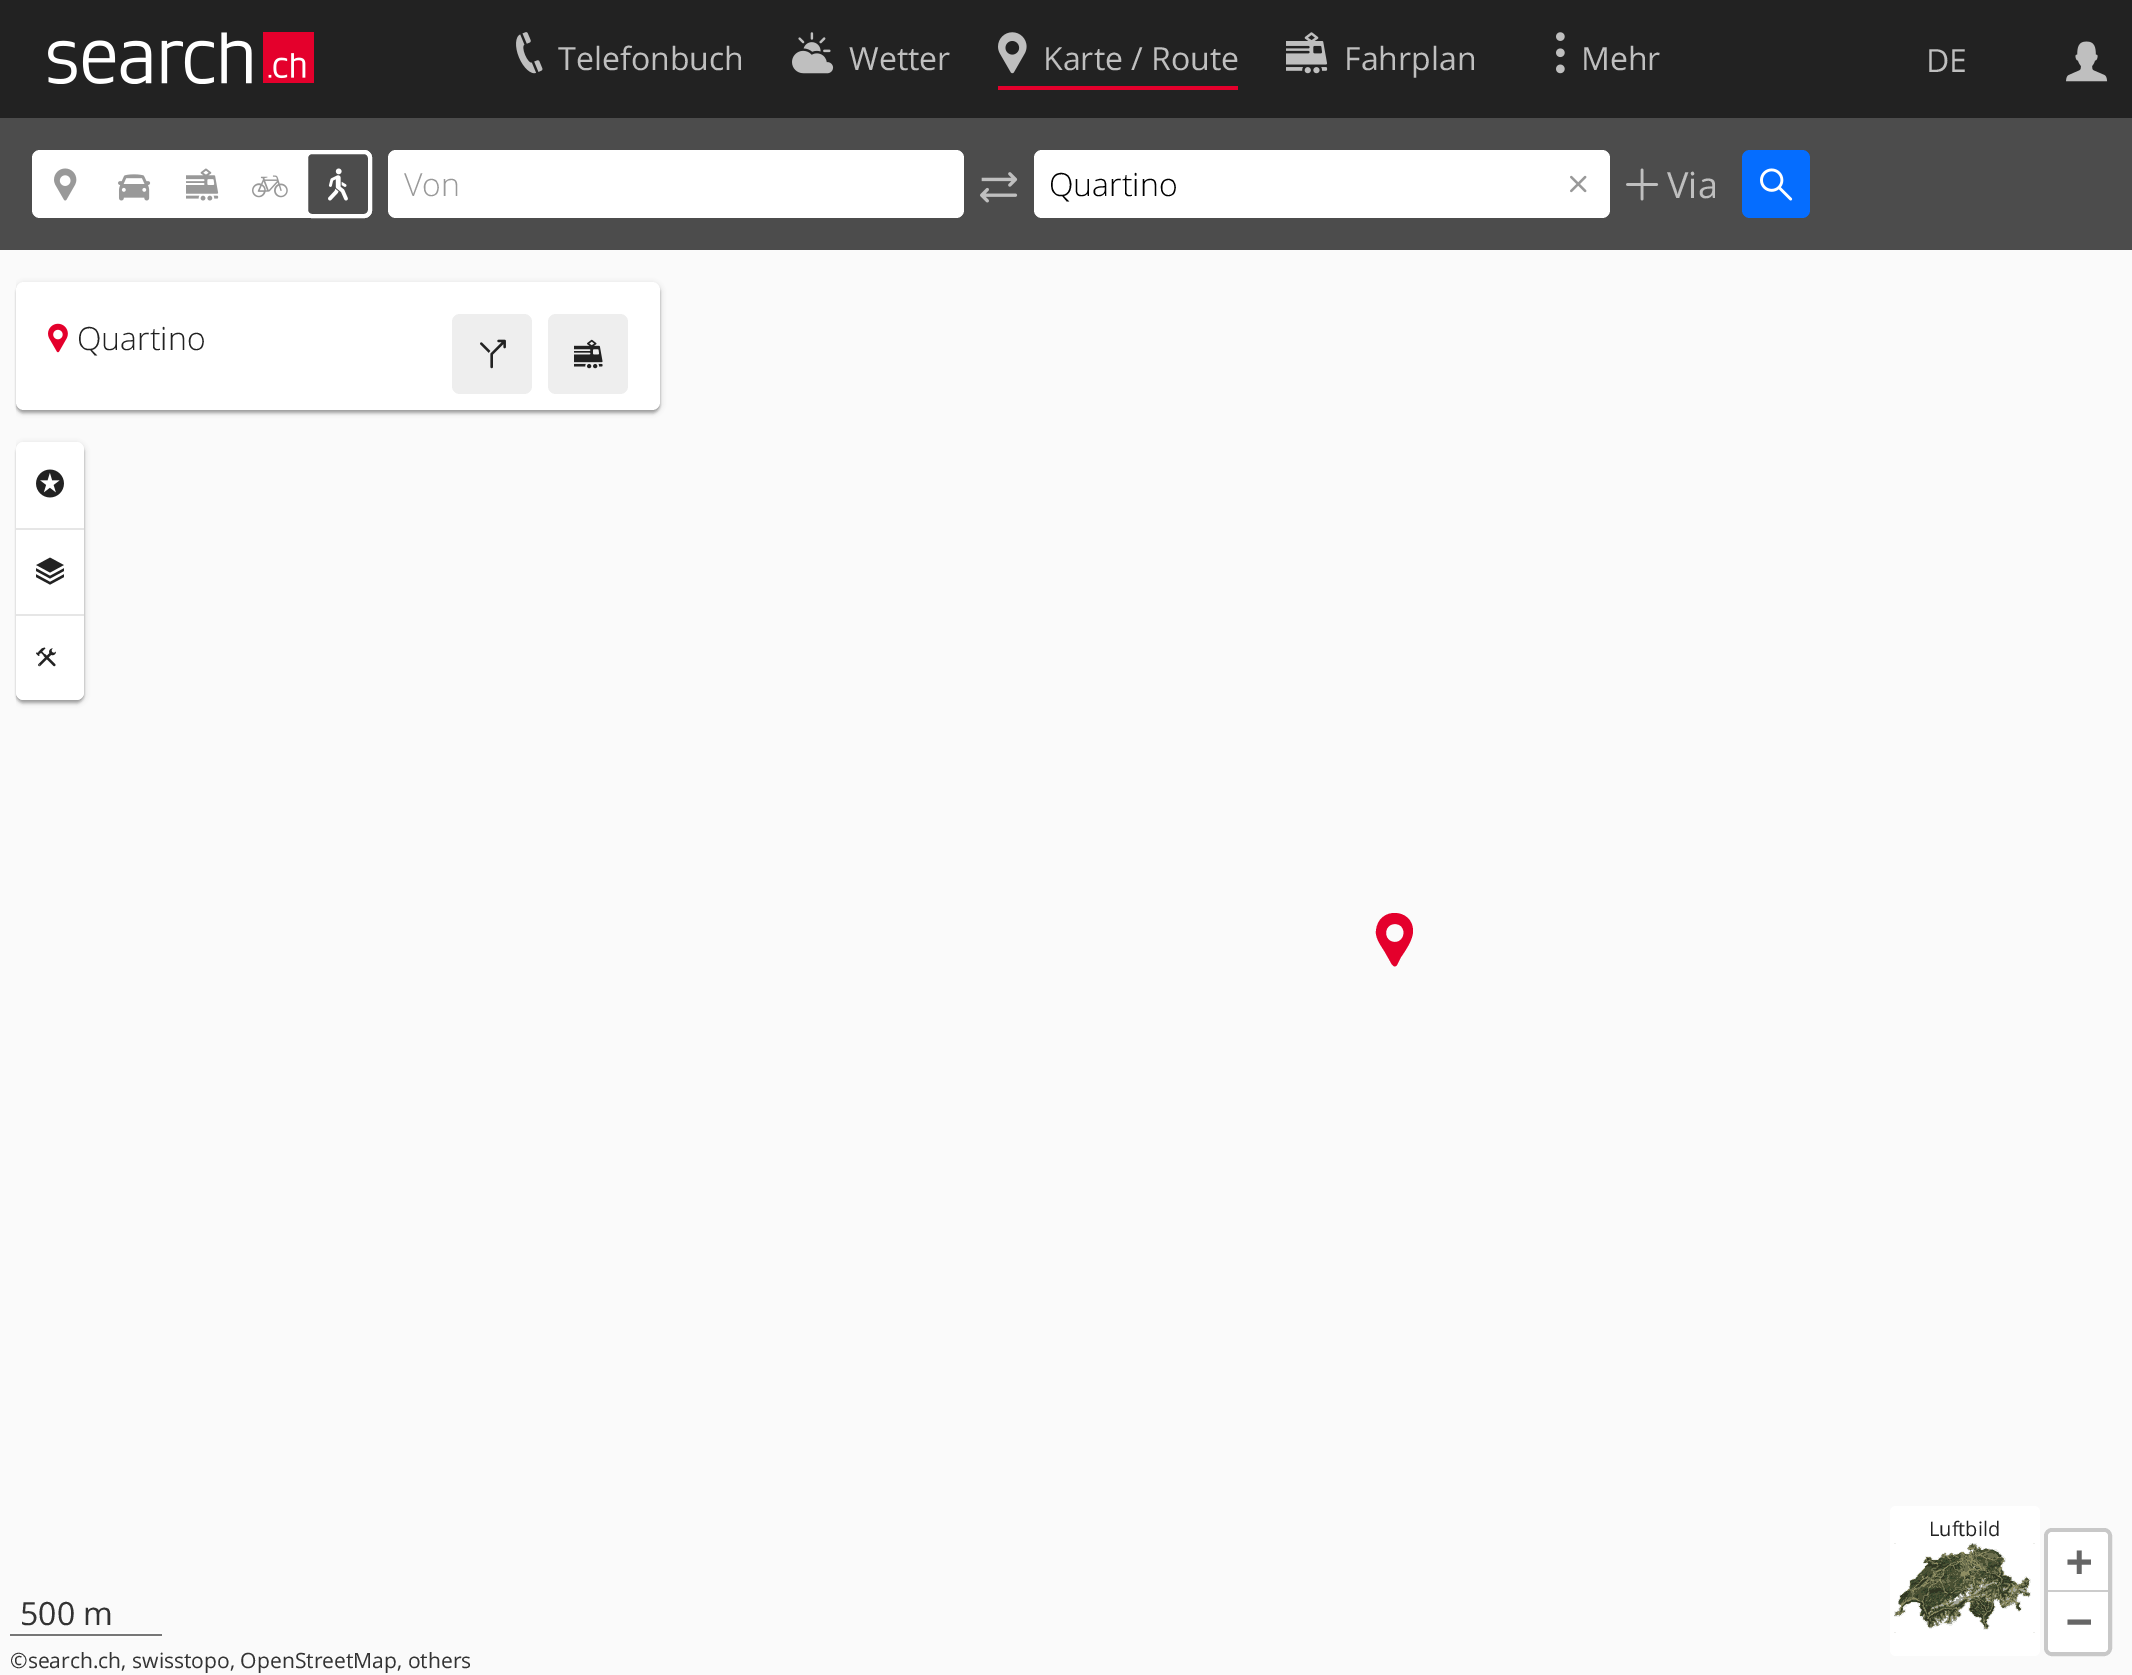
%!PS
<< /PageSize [2132 1675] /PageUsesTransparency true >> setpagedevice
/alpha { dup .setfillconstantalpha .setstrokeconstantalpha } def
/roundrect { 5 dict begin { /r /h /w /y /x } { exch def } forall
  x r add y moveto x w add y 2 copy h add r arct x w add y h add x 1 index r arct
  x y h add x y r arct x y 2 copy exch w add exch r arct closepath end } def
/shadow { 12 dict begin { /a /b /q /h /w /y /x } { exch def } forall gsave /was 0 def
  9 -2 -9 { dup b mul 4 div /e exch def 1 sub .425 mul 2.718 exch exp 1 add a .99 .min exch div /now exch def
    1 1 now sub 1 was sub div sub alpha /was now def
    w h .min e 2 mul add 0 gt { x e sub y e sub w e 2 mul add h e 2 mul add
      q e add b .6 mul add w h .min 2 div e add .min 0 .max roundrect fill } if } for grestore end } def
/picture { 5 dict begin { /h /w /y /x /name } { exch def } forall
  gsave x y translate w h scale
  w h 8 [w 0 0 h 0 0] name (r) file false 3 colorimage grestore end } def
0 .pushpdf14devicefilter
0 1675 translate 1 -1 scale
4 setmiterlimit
0.98 setgray
0 0 2132 1675 rectfill
0.133 setgray
0 0 2132 118 rectfill
(img1.rgb) 48 32 266 52 picture
(img2.rgb) 516 32 27 42 picture
/OpenSans-Regular [32 0 0 -32 0 0] selectfont
0.749 setgray
558 70 moveto (Telefonbuch) show
(img3.rgb) 792 32 42 42 picture
849 70 moveto (Wetter) show
0.894 0 0.173 setrgbcolor
998 86 240 4 rectfill
(img4.rgb) 998 32 29 42 picture
0.749 setgray
1043 70 moveto (Karte / Route) show
(img5.rgb) 1286 32 42 42 picture
1344 70 moveto (Fahrplan) show
(img6.rgb) 1556 32 9 42 picture
1581 70 moveto (Mehr) show
1926 72 moveto (DE) show
(img7.rgb) 2066 41 42 41 picture
0.298 setgray
0 118 2132 132 rectfill
1 setgray
32 150 340 68 8 roundrect fill
(img8.rgb) 54 168 23 33 picture
(img9.rgb) 186 168 33 33 picture
0.298 setgray
306 152 64 64 6 roundrect gsave fill grestore
1 setgray
4 setlinewidth
stroke
(img10.rgb) 118 174 33 27 picture
(img11.rgb) 252 175 36 23 picture
(img12.rgb) 328 168 20 33 picture
388 150 576 68 8 roundrect fill
/OpenSans-Light [32 0 0 -32 0 0] selectfont
0.6 setgray
404 196 moveto (Von) show
(img13.rgb) 980 172 38 31 picture
1 setgray
1034 150 576 68 8 roundrect fill
0 setgray
1049 196 moveto (Quartino) show
(img14.rgb) 1570 175 17 18 picture
(img15.rgb) 1626 168 33 33 picture
/OpenSans-Regular [36 0 0 -36 0 0] selectfont
0.749 setgray
1667 198 moveto (Via) show
0.02 0.427 1 setrgbcolor
1742 150 68 68 8 roundrect fill
(img16.rgb) 1760 168 33 33 picture
gsave
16 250 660 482 rectclip
0 setgray
16 284 644 128 8 3 0.2 shadow
grestore
0 setgray
16 286 644 128 8 1 0.12 shadow
16 284 644 128 8 1 0.14 shadow
1 setgray
16 282 644 128 8 roundrect fill
(img17.rgb) 48 323 20 30 picture
/OpenSans-Light [32 0 0 -32 0 0] selectfont
0.133 setgray
77 350 moveto (Quartino) show
0.933 setgray
452 314 80 80 8 roundrect fill
(img18.rgb) 480 339 26 30 picture
548 314 80 80 8 roundrect fill
(img19.rgb) 574 339 29 30 picture
gsave
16 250 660 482 rectclip
0 setgray
16 444 68 258 8 3 0.2 shadow
grestore
0 setgray
16 446 68 258 8 1 0.12 shadow
16 444 68 258 8 1 0.14 shadow
1 setgray
16 442 68 258 8 roundrect fill
newpath 24 442 moveto 76 442 lineto 80.5 442 84 445.5 84 450 curveto 84 530 lineto 16 530 lineto 16 450 lineto 16 445.5 19.5 442 24 442 curveto closepath fill
0.902 setgray
16 528 68 2 rectfill
(img20.rgb) 36 469 28 29 picture
16 614 68 2 rectfill
(img21.rgb) 36 557 28 28 picture
1 setgray
newpath 16 616 moveto 84 616 lineto 84 692 lineto 84 696.5 80.5 700 76 700 curveto 24 700 lineto 19.5 700 16 696.5 16 692 curveto closepath fill
(img22.rgb) 36 647 20 20 picture
1890 1506 150 150 6 roundrect fill
(img23.rgb) 1894 1543 141 90 picture
/OpenSans-Regular [20 0 0 -20 0 0] selectfont
0.133 setgray
1929 1536 moveto (Luftbild) show
0.894 0 0.173 setrgbcolor
newpath 1413 931 moveto 1413 908 1378 906 1376 931 curveto 1375 939 1383 948 1386 954 curveto 1390 961 lineto 1391 963 1394 969 1397 965 curveto 1401 957 lineto 1405 951 1413 940 1413 931 curveto closepath 1395 942 moveto 1383 942 1383 924 1395 924 curveto 1407 924 1406 942 1395 942 curveto closepath fill
0.784 setgray
2046 1530 64 124 6 roundrect stroke
1 setgray
newpath 2052 1532 moveto 2104 1532 lineto 2106 1532 2108 1534 2108 1536 curveto 2108 1592 lineto 2048 1592 lineto 2048 1536 lineto 2048 1534 2050 1532 2052 1532 curveto closepath fill
0.8 setgray
2048 1590 60 2 rectfill
/DejaVuSansMono-Bold [44 0 0 -44 0 0] selectfont
0.4 setgray
2066 1576 moveto (+) show
1 setgray
newpath 2048 1592 moveto 2108 1592 lineto 2108 1648 lineto 2108 1650 2106 1652 2104 1652 curveto 2052 1652 lineto 2050 1652 2048 1650 2048 1648 curveto closepath fill
0.4 setgray
2066 1636 moveto (−) show
0.992 setgray
10 1636 152 2 rectfill
10 1632 152 2 rectfill
0.467 setgray
10 1634 152 2 rectfill
/OpenSans-Regular [32 0 0 -32 0 0] selectfont
0.2 setgray
20 1625 moveto (500 m) show
/OpenSans-Regular [21.1 0 0 -21.1 0 0] selectfont
10 1668 moveto (©search.ch, swisstopo, OpenStreetMap, others) show
.poppdf14devicefilter showpage
